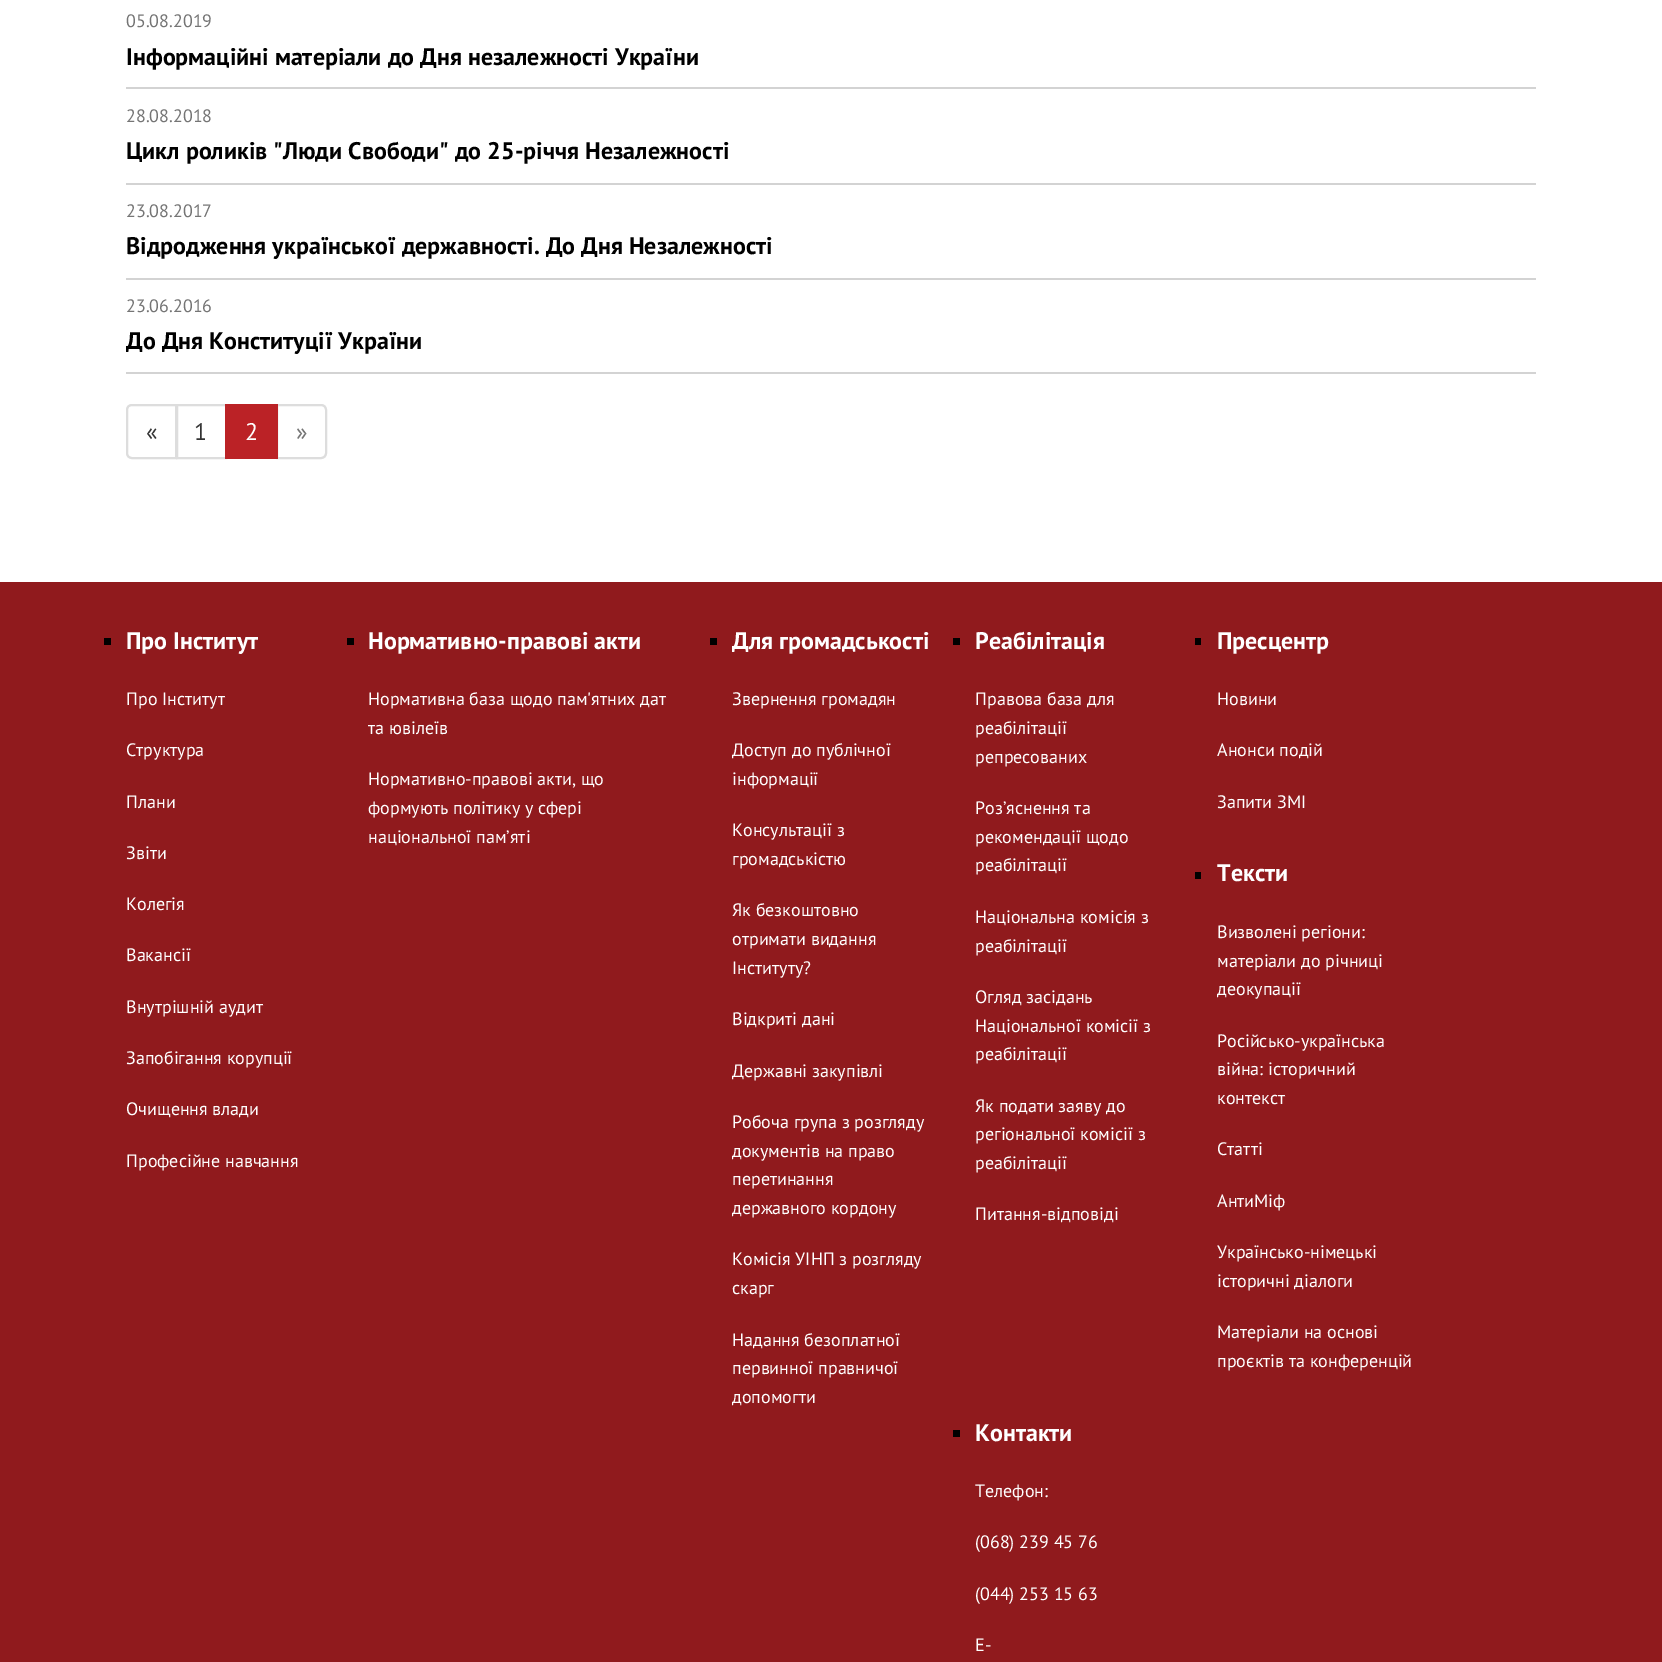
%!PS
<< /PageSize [1662 1662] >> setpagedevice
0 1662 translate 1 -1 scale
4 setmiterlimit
1 setgray
0 0 1662 1662 rectfill
0.827 setgray
126 87 1410 2 rectfill
/PTSans-Regular [18 0 0 -18 0 0] selectfont
0.459 setgray
126 27 moveto (05.08.2019) show
/PTSans-Bold [24 0 0 -24 0 0] selectfont
0 setgray
126 65 moveto (Інформаційні матеріали до Дня незалежності України) show
0.827 setgray
126 183 1410 2 rectfill
/PTSans-Regular [18 0 0 -18 0 0] selectfont
0.459 setgray
126 122 moveto (28.08.2018) show
/PTSans-Bold [24 0 0 -24 0 0] selectfont
0 setgray
126 159 moveto (Цикл роликів "Люди Свободи" до 25-річчя Незалежності) show
0.827 setgray
126 278 1410 2 rectfill
/PTSans-Regular [18 0 0 -18 0 0] selectfont
0.459 setgray
126 217 moveto (23.08.2017) show
/PTSans-Bold [24 0 0 -24 0 0] selectfont
0 setgray
126 254 moveto (Відродження української державності. До Дня Незалежності) show
0.827 setgray
126 372 1410 2 rectfill
/PTSans-Regular [18 0 0 -18 0 0] selectfont
0.459 setgray
126 312 moveto (23.06.2016) show
/PTSans-Bold [24 0 0 -24 0 0] selectfont
0 setgray
126 349 moveto (До Дня Конституції України) show
0.867 setgray
2 setlinewidth
newpath 132 405 moveto 176 405 lineto 176 458 lineto 132 458 lineto 129 458 127 456 127 453 curveto 127 410 lineto 127 407 129 405 132 405 curveto closepath stroke
/PTSans-Regular [24 0 0 -24 0 0] selectfont
0.2 setgray
146 440 moveto («) show
0.867 setgray
177 405 49 53 rectstroke
0.2 setgray
194 440 moveto (1) show
0.867 setgray
newpath 277 405 moveto 321 405 lineto 324 405 326 407 326 410 curveto 326 453 lineto 326 456 324 458 321 458 curveto 277 458 lineto closepath stroke
0.733 0.133 0.149 setrgbcolor
225 404 53 55 rectfill
1 setgray
245 440 moveto (2) show
0.459 setgray
296 440 moveto (») show
0.565 0.102 0.114 setrgbcolor
0 582 1662 1080 rectfill
0 setgray
104 638 7 7 rectfill
/PTSans-Bold [24 0 0 -24 0 0] selectfont
1 setgray
126 649 moveto (Про Інститут) show
/PTSans-Regular [18 0 0 -18 0 0] selectfont
126 705 moveto (Про Інститут) show
126 756 moveto (Структура) show
126 808 moveto (Плани) show
126 859 moveto (Звіти) show
126 910 moveto (Колегія) show
126 961 moveto (Вакансії) show
126 1013 moveto (Внутрішній аудит) show
126 1064 moveto (Запобігання корупції) show
126 1115 moveto (Очищення влади) show
126 1167 moveto (Професійне навчання) show
0 setgray
347 638 7 7 rectfill
/PTSans-Bold [24 0 0 -24 0 0] selectfont
1 setgray
368 649 moveto (Нормативно-правові акти) show
/PTSans-Regular [18 0 0 -18 0 0] selectfont
368 705 moveto (Нормативна база щодо пам'ятних дат) show
368 734 moveto (та ювілеїв) show
368 785 moveto (Нормативно-правові акти, що) show
368 814 moveto (формують політику у сфері) show
368 843 moveto (національної памʼяті) show
0 setgray
710 638 7 7 rectfill
/PTSans-Bold [24 0 0 -24 0 0] selectfont
1 setgray
732 649 moveto (Для громадськості) show
/PTSans-Regular [18 0 0 -18 0 0] selectfont
732 705 moveto (Звернення громадян) show
732 756 moveto (Доступ до публічної) show
732 785 moveto (інформації) show
732 836 moveto (Консультації з) show
732 865 moveto (громадськістю) show
732 916 moveto (Як безкоштовно) show
732 945 moveto (отримати видання) show
732 974 moveto (Інституту?) show
732 1025 moveto (Відкриті дані) show
732 1077 moveto (Державні закупівлі) show
732 1128 moveto (Робоча група з розгляду) show
732 1157 moveto (документів на право) show
732 1185 moveto (перетинання) show
732 1214 moveto (державного кордону) show
732 1265 moveto (Комісія УІНП з розгляду) show
732 1294 moveto (скарг) show
732 1346 moveto (Надання безоплатної) show
732 1374 moveto (первинної правничої) show
732 1403 moveto (допомогти) show
0 setgray
953 638 7 7 rectfill
/PTSans-Bold [24 0 0 -24 0 0] selectfont
1 setgray
975 649 moveto (Реабілітація) show
/PTSans-Regular [18 0 0 -18 0 0] selectfont
975 705 moveto (Правова база для) show
975 734 moveto (реабілітації) show
975 763 moveto (репресованих) show
975 814 moveto (Розʼяснення та) show
975 843 moveto (рекомендації щодо) show
975 871 moveto (реабілітації) show
975 923 moveto (Національна комісія з) show
975 952 moveto (реабілітації) show
975 1003 moveto (Огляд засідань) show
975 1032 moveto (Національної комісії з) show
975 1060 moveto (реабілітації) show
975 1112 moveto (Як подати заяву до) show
975 1140 moveto (регіональної комісії з) show
975 1169 moveto (реабілітації) show
975 1220 moveto (Питання-відповіді) show
0 setgray
1195 638 6 7 rectfill
/PTSans-Bold [24 0 0 -24 0 0] selectfont
1 setgray
1217 649 moveto (Пресцентр) show
/PTSans-Regular [18 0 0 -18 0 0] selectfont
1217 705 moveto (Новини) show
1217 756 moveto (Анонси подій) show
1217 808 moveto (Запити ЗМІ) show
0 setgray
1195 872 6 7 rectfill
/PTSans-Bold [24 0 0 -24 0 0] selectfont
1 setgray
1217 881 moveto (Тексти) show
/PTSans-Regular [18 0 0 -18 0 0] selectfont
1217 938 moveto (Визволені регіони:) show
1217 967 moveto (матеріали до річниці) show
1217 995 moveto (деокупації) show
1217 1047 moveto (Російсько-українська) show
1217 1075 moveto (війна: історичний) show
1217 1104 moveto (контекст) show
1217 1155 moveto (Статті) show
1217 1207 moveto (АнтиМіф) show
1217 1258 moveto (Українсько-німецькі) show
1217 1287 moveto (історичні діалоги) show
1217 1338 moveto (Матеріали на основі) show
1217 1367 moveto (проєктів та конференцій) show
0 setgray
953 1430 7 7 rectfill
/PTSans-Bold [24 0 0 -24 0 0] selectfont
1 setgray
975 1441 moveto (Контакти) show
/PTSans-Regular [18 0 0 -18 0 0] selectfont
975 1497 moveto (Телефон:) show
975 1548 moveto (\(068\) 239 45 76) show
975 1600 moveto (\(044\) 253 15 63) show
975 1651 moveto (Е-) show
showpage
